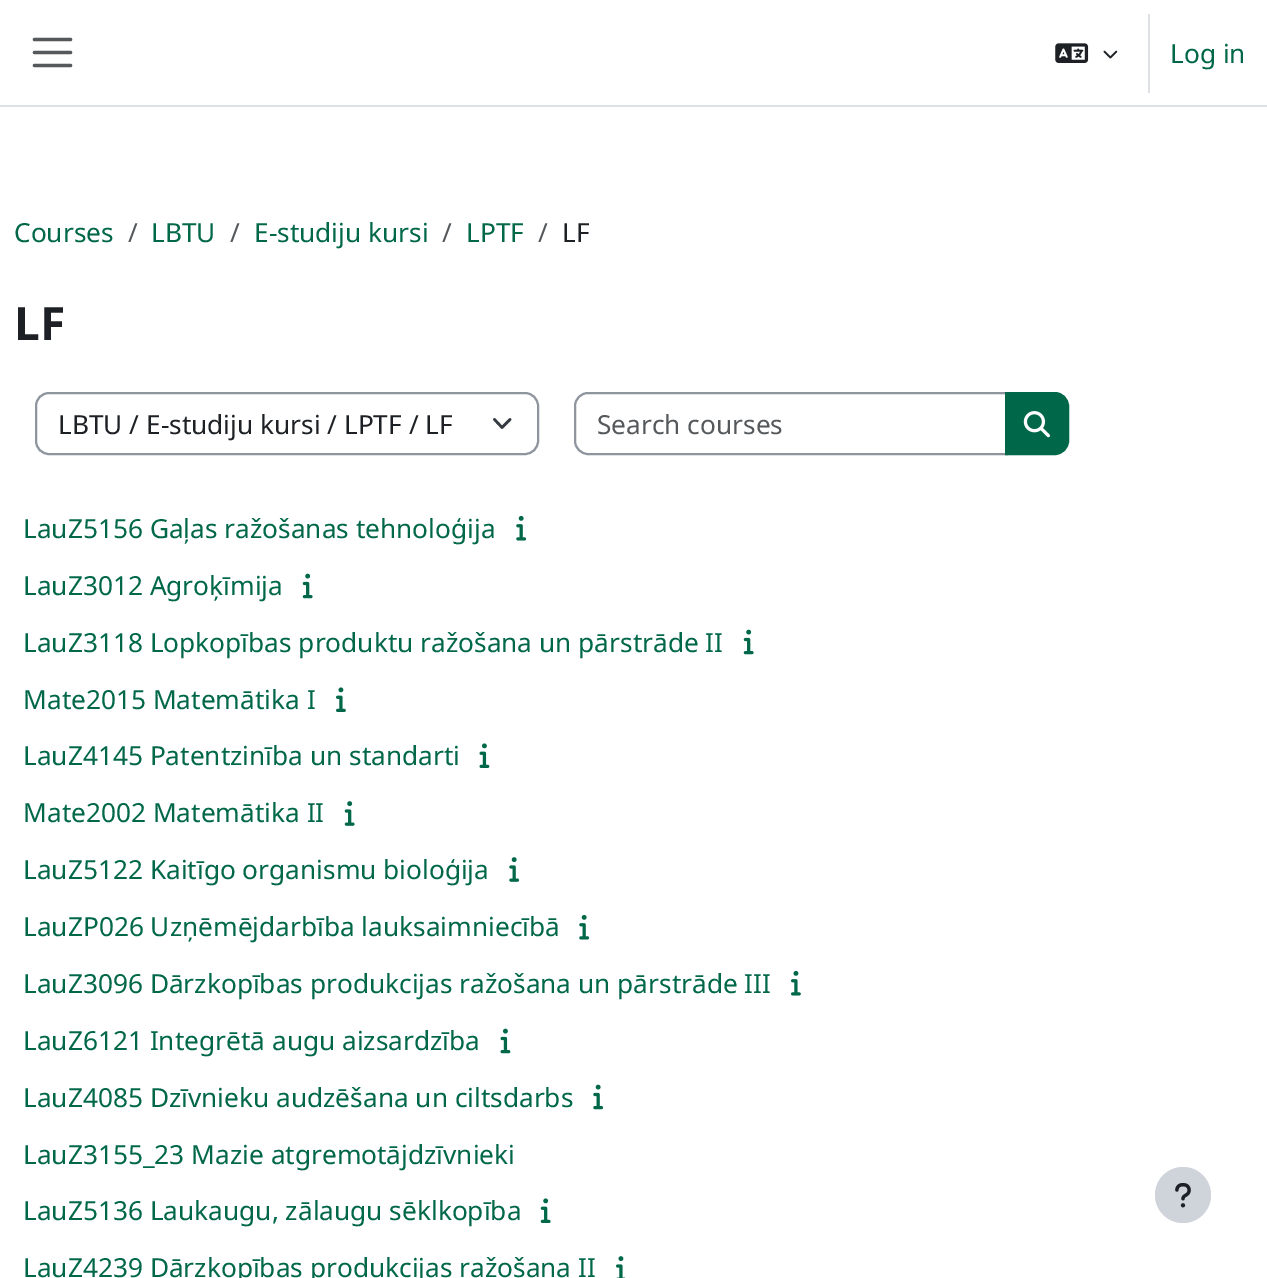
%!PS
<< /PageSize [1267 1278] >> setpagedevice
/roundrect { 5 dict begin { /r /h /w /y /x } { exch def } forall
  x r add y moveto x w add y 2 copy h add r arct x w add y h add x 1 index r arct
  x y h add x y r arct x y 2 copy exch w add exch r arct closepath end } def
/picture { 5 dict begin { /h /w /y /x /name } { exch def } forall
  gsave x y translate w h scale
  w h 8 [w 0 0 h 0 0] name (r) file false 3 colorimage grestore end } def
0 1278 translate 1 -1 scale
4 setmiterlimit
1 setgray
0 0 1267 1278 rectfill
0.871 0.886 0.902 setrgbcolor
0 105 1267 2 rectfill
0.337 0.349 0.361 setrgbcolor
3.3 setlinewidth
1 setlinecap
newpath 34.5 39.5 moveto 70.5 39.5 lineto 34.5 52.5 moveto 70.5 52.5 lineto 34.5 65.5 moveto 70.5 65.5 lineto stroke
(img1.rgb) 1055 43 34 20 picture
(img2.rgb) 1103 50 15 9 picture
0.871 0.886 0.902 setrgbcolor
1148 14 2 79 rectfill
/NotoSans-Regular [26.25 0 0 -26.25 0 0] selectfont
0 0.404 0.286 setrgbcolor
1170 63 moveto (Log in) show
14 242 moveto (Courses) show
0.337 0.349 0.361 setrgbcolor
128 242 moveto (/) show
0 0.404 0.286 setrgbcolor
151 242 moveto (LBTU) show
0.337 0.349 0.361 setrgbcolor
230 242 moveto (/) show
0 0.404 0.286 setrgbcolor
254 242 moveto (E-studiju kursi) show
0.337 0.349 0.361 setrgbcolor
442 242 moveto (/) show
gsave
466 212 57 40 rectclip
0 0.404 0.286 setrgbcolor
466 242 moveto (LPTF) show
grestore
538 242 moveto (/) show
0.114 0.129 0.145 setrgbcolor
562 242 moveto (LF) show
/NotoSans-Bold [46 0 0 -46 0 0] selectfont
14 340 moveto (LF) show
0.204 0.227 0.251 setrgbcolor
2.6 setlinewidth
1 setlinejoin
newpath 494.5 419.5 moveto 502 427.5 lineto 510 419.5 lineto stroke
0.561 0.584 0.62 setrgbcolor
2 setlinewidth
0 setlinecap
0 setlinejoin
36 393 502 61 13 roundrect stroke
/NotoSans-Regular [26.25 0 0 -26.25 0 0] selectfont
0.114 0.129 0.145 setrgbcolor
58 434 moveto (LBTU / E-studiju kursi / LPTF / LF) show
0.561 0.584 0.62 setrgbcolor
newpath 588 393 moveto 1007 393 lineto 1007 454 lineto 588 454 lineto 581 454 575 448 575 441 curveto 575 406 lineto 575 399 581 393 588 393 curveto closepath stroke
0.337 0.349 0.361 setrgbcolor
597 434 moveto (Search courses) show
0 0.404 0.286 setrgbcolor
newpath 1006 393 moveto 1055 393 lineto 1062 393 1068 399 1068 406 curveto 1068 441 lineto 1068 448 1062 454 1055 454 curveto 1006 454 lineto closepath gsave fill grestore
stroke
(img3.rgb) 1023 411 27 27 picture
23 538 moveto (LauZ5156 Gaļas ražošanas tehnoloģija) show
(img4.rgb) 516 515 11 26 picture
23 595 moveto (LauZ3012 Agroķīmija) show
(img5.rgb) 302 573 11 26 picture
23 652 moveto (LauZ3118 Lopkopības produktu ražošana un pārstrāde II) show
(img5.rgb) 743 629 11 26 picture
23 709 moveto (Mate2015 Matemātika I) show
(img6.rgb) 336 687 10 25 picture
23 765 moveto (LauZ4145 Patentzinība un standarti) show
(img7.rgb) 479 743 11 25 picture
23 822 moveto (Mate2002 Matemātika II) show
(img8.rgb) 344 801 11 25 picture
23 879 moveto (LauZ5122 Kaitīgo organismu bioloģija) show
(img9.rgb) 509 857 11 25 picture
23 936 moveto (LauZP026 Uzņēmējdarbība lauksaimniecībā) show
(img4.rgb) 579 914 11 26 picture
23 993 moveto (LauZ3096 Dārzkopības produkcijas ražošana un pārstrāde III) show
(img10.rgb) 791 970 10 26 picture
23 1050 moveto (LauZ6121 Integrētā augu aizsardzība) show
(img11.rgb) 500 1028 11 26 picture
23 1107 moveto (LauZ4085 Dzīvnieku audzēšana un ciltsdarbs) show
(img12.rgb) 593 1084 11 26 picture
23 1164 moveto (LauZ3155_23 Mazie atgremotājdzīvnieki) show
23 1220 moveto (LauZ5136 Laukaugu, zālaugu sēklkopība) show
(img13.rgb) 540 1198 11 25 picture
23 1277 moveto (LauZ4239 Dārzkopības produkcijas ražošana II) show
(img14.rgb) 616 1256 10 22 picture
0.808 0.831 0.855 setrgbcolor
newpath 1183 1195 28 0 360 arc closepath fill
(img15.rgb) 1175 1183 16 25 picture
showpage
